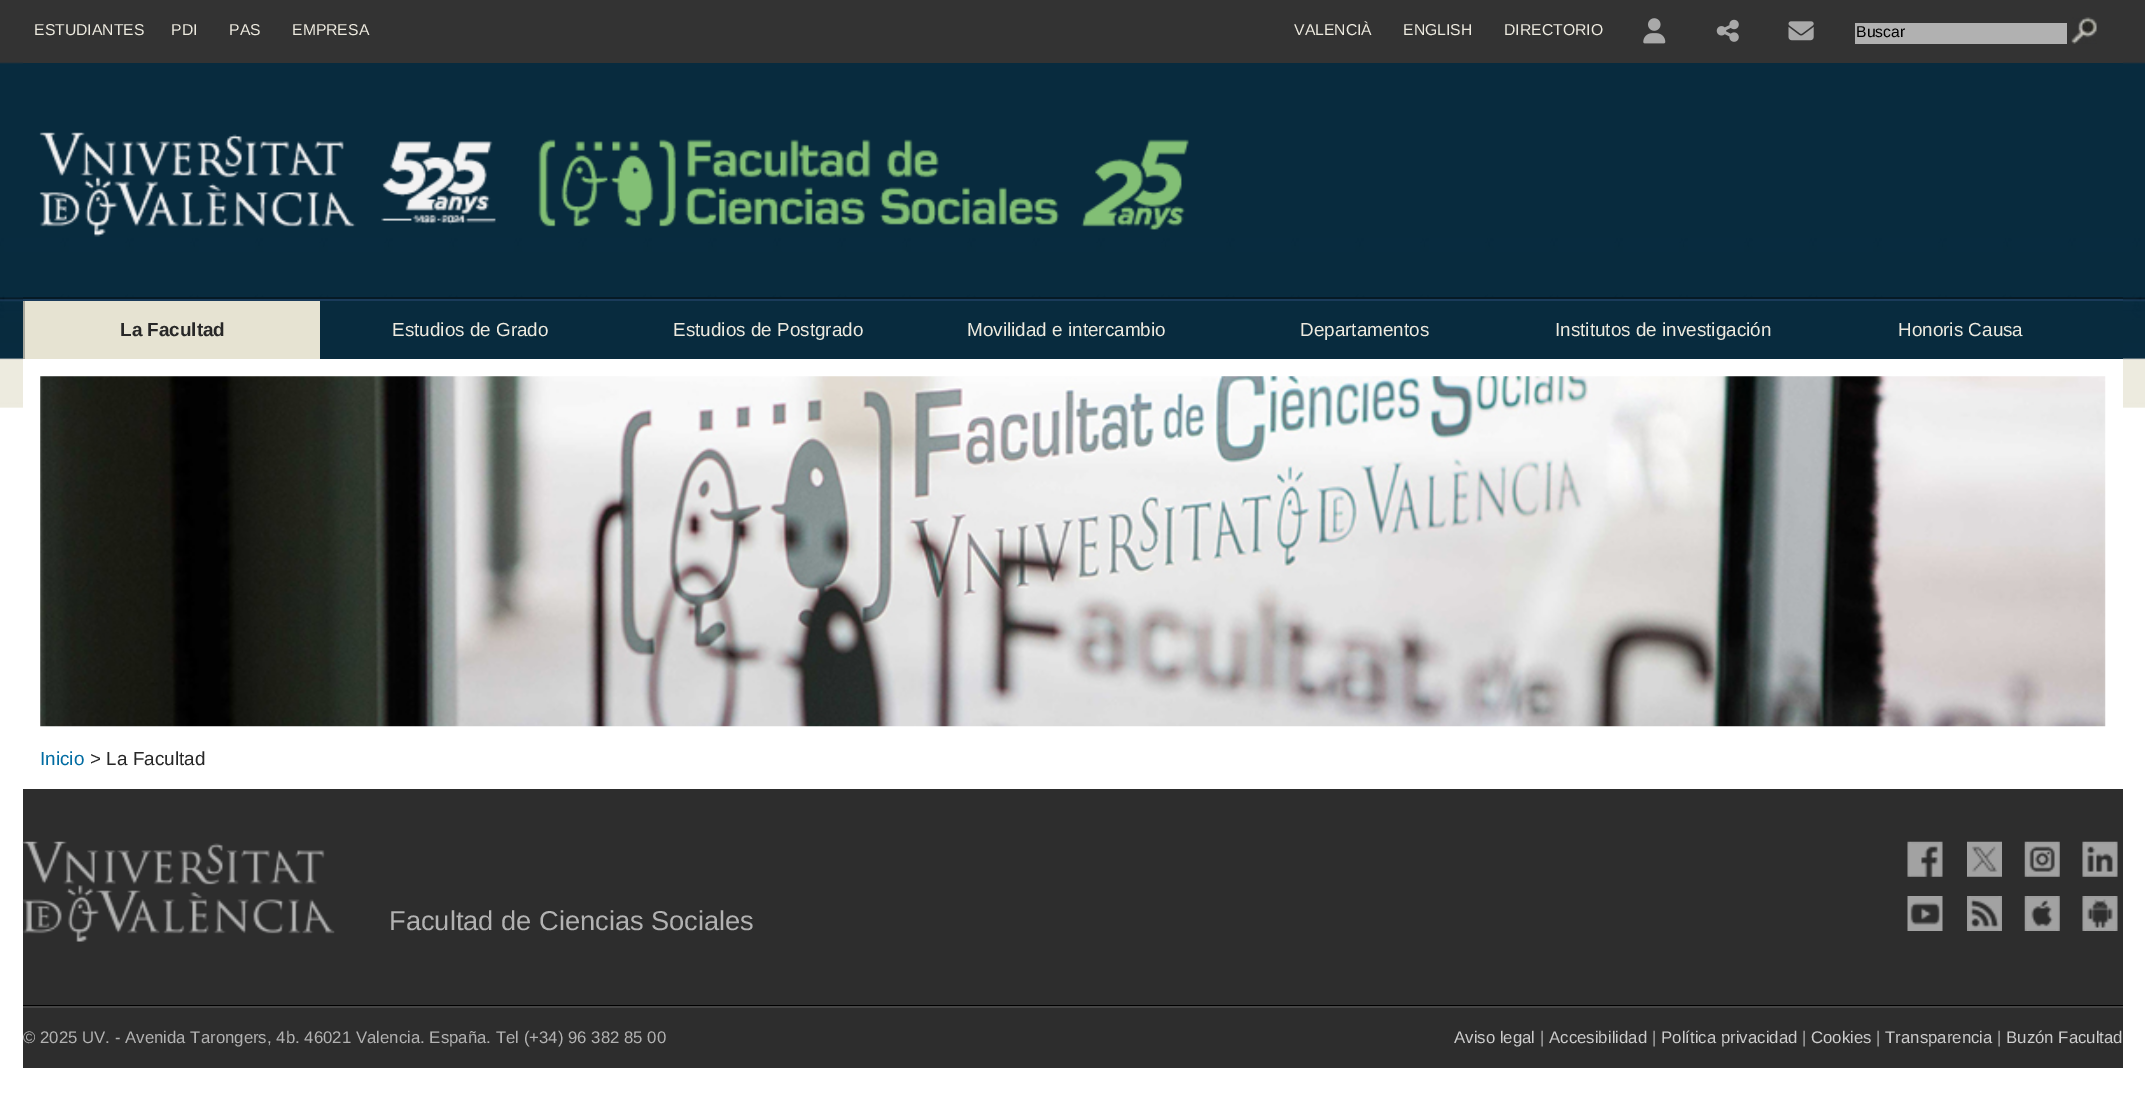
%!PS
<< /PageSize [2145 1096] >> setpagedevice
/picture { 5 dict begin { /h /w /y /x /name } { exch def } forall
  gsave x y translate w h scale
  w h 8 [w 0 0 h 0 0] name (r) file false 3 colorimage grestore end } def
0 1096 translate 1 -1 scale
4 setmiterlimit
1 setgray
0 0 2145 1096 rectfill
(img1.rgb) 0 0 2145 408 picture
23 359 2100 49 rectfill
0.2 setgray
23 62 2100 1 rectfill
/LiberationSans-Regular [15.75 0 0 -15.75 0 0] selectfont
0.929 0.918 0.875 setrgbcolor
34 35 moveto (ESTUDIANTES) show
171 35 moveto (PDI) show
229 35 moveto (PAS) show
292 35 moveto (EMPRESA) show
1294 35 moveto (VALENCIÀ) show
1403 35 moveto (ENGLISH) show
1504 35 moveto (DIRECTORIO) show
(img2.rgb) 1643 18 23 26 picture
(img3.rgb) 1716 19 23 23 picture
(img4.rgb) 1788 21 26 20 picture
0.694 setgray
1855 23 212 21 rectfill
0 setgray
1856 37 moveto (Buscar) show
(img5.rgb) 2071 17 26 27 picture
0.031 0.169 0.243 setrgbcolor
23 63 2100 1 rectfill
0.024 0.102 0.145 setrgbcolor
23 297 2100 2 rectfill
(img6.rgb) 39 132 1150 105 picture
0.031 0.169 0.243 setrgbcolor
320 301 1803 58 rectfill
0.102 0.231 0.353 setrgbcolor
23 299 2100 2 rectfill
0.902 0.89 0.824 setrgbcolor
25 301 295 58 rectfill
0.651 0.651 0.612 setrgbcolor
23 301 2 58 rectfill
/LiberationSans-Bold [18.9 0 0 -18.9 0 0] selectfont
0.157 setgray
120 336 moveto (La Facultad) show
/LiberationSans-Regular [18.9 0 0 -18.9 0 0] selectfont
0.929 0.918 0.875 setrgbcolor
392 336 moveto (Estudios de Grado) show
673 336 moveto (Estudios de Postgrado) show
967 336 moveto (Movilidad e intercambio) show
1300 336 moveto (Departamentos) show
1555 336 moveto (Institutos de investigación) show
1898 336 moveto (Honoris Causa) show
(img7.rgb) 40 376 2066 351 picture
0.004 0.424 0.635 setrgbcolor
40 765 moveto (Inicio) show
0.157 setgray
90 765 moveto (> La Facultad) show
0.176 setgray
23 789 2100 279 rectfill
(img8.rgb) 22 841 313 101 picture
/LiberationSans-Regular [27.25 0 0 -27.25 0 0] selectfont
0.698 setgray
389 930 moveto (Facultad de Ciencias Sociales) show
(img9.rgb) 1907 841 36 36 picture
(img10.rgb) 1967 841 35 36 picture
(img11.rgb) 2024 841 36 36 picture
(img12.rgb) 2082 841 36 36 picture
(img13.rgb) 1907 896 36 35 picture
(img14.rgb) 1967 896 35 35 picture
(img15.rgb) 2024 896 36 35 picture
(img16.rgb) 2082 896 36 35 picture
0 setgray
23 1005 2100 1 rectfill
0.267 setgray
23 1006 2100 2 rectfill
/LiberationSans-Regular [16.8 0 0 -16.8 0 0] selectfont
0.698 setgray
23 1043 moveto (© 2025 UV. - Avenida Tarongers, 4b. 46021 Valencia. España. Tel \(+34\) 96 382 85 00) show
0.8 setgray
1454 1043 moveto (Aviso legal) show
0.698 setgray
1540 1043 moveto (|) show
0.8 setgray
1549 1043 moveto (Accesibilidad) show
0.698 setgray
1652 1043 moveto (|) show
0.8 setgray
1661 1043 moveto (Política privacidad) show
0.698 setgray
1802 1043 moveto (|) show
0.8 setgray
1811 1043 moveto (Cookies) show
0.698 setgray
1876 1043 moveto (|) show
0.8 setgray
1885 1043 moveto (Transparencia) show
0.698 setgray
1997 1043 moveto (|) show
0.8 setgray
2006 1043 moveto (Buzón Facultad) show
showpage
